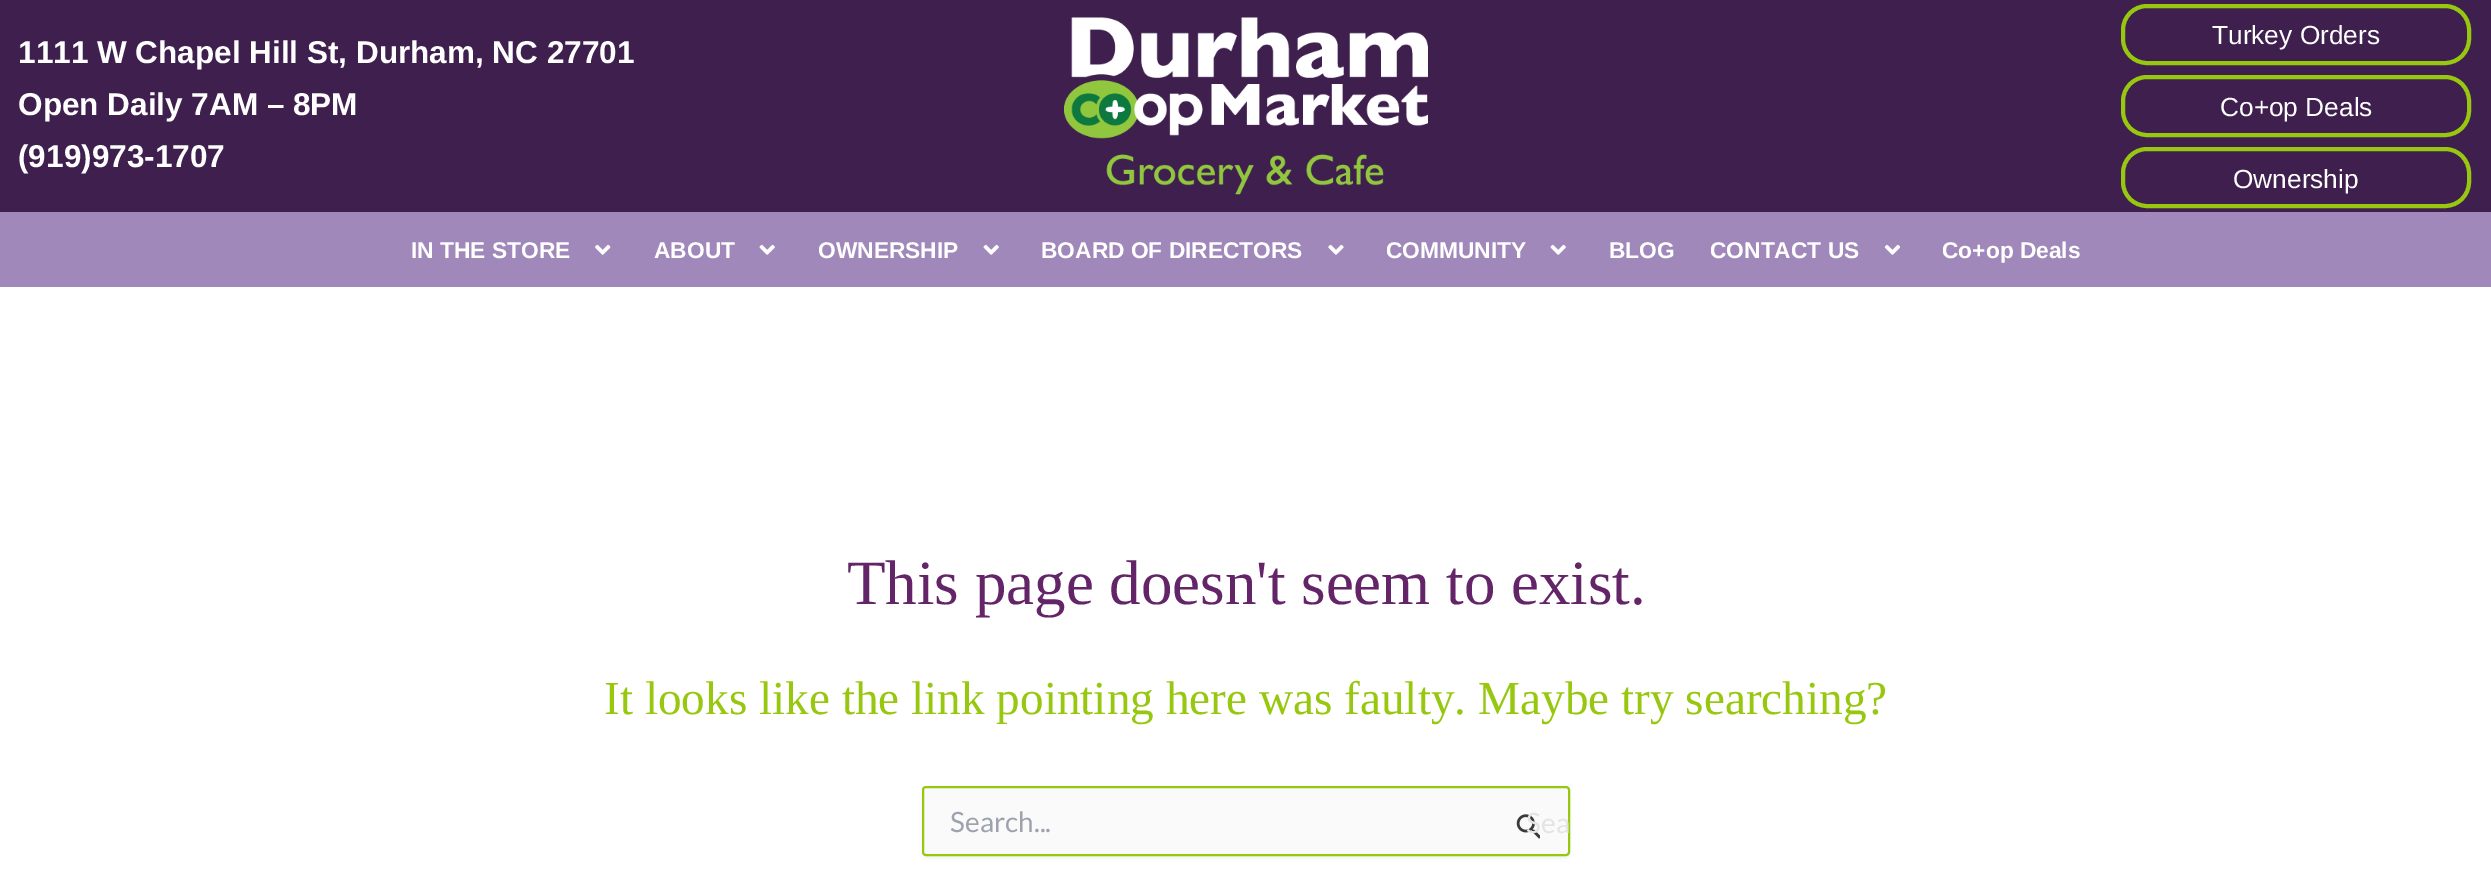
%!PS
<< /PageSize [2491 894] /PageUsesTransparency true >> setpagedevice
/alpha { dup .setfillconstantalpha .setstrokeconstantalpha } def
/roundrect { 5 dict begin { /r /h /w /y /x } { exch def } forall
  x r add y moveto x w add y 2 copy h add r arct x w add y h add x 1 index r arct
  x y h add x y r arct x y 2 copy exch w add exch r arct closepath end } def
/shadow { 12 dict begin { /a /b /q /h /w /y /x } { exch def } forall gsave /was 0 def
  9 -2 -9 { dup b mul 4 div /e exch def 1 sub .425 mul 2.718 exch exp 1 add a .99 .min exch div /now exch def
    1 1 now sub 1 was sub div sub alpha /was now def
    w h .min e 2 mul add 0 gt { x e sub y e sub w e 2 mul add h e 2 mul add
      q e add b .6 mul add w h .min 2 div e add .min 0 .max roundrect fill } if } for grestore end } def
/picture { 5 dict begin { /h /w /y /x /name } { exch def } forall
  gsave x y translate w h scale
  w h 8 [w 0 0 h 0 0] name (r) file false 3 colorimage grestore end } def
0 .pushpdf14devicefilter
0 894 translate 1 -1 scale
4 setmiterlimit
1 setgray
0 0 2491 894 rectfill
0.243 0.122 0.306 setrgbcolor
0 0 2491 212 rectfill
/LiberationSans-Bold [31.5 0 0 -31.5 0 0] selectfont
1 setgray
18 63 moveto (1111 W Chapel Hill St, Durham, NC 27701) show
18 115 moveto (Open Daily 7AM – 8PM) show
18 167 moveto (\(919\)973-1707) show
(img1.rgb) 1064 17 364 178 picture
0.592 0.78 0.059 setrgbcolor
4 setlinewidth
2123 6 346 57 24 roundrect stroke
/LiberationSans-Regular [26.25 0 0 -26.25 0 0] selectfont
1 setgray
2212 44 moveto (Turkey Orders) show
0.592 0.78 0.059 setrgbcolor
2123 77 346 58 24 roundrect stroke
1 setgray
2220 116 moveto (Co+op Deals) show
0.592 0.78 0.059 setrgbcolor
2123 149 346 57 24 roundrect stroke
1 setgray
2233 188 moveto (Ownership) show
0.627 0.533 0.733 setrgbcolor
0 212 2491 75 rectfill
/LiberationSans-Bold [22.75 0 0 -22.75 0 0] selectfont
1 setgray
411 258 moveto (IN THE STORE) show
(img2.rgb) 595 244 16 11 picture
654 258 moveto (ABOUT) show
(img3.rgb) 759 244 16 11 picture
818 258 moveto (OWNERSHIP) show
(img3.rgb) 983 244 16 11 picture
1041 258 moveto (BOARD OF DIRECTORS) show
(img4.rgb) 1328 244 16 11 picture
1386 258 moveto (COMMUNITY) show
(img3.rgb) 1550 244 16 11 picture
1609 258 moveto (BLOG) show
1710 258 moveto (CONTACT US) show
(img5.rgb) 1884 244 17 11 picture
1942 258 moveto (Co+op Deals) show
/LiberationSerif-Regular [63 0 0 -63 0 0] selectfont
0.388 0.145 0.404 setrgbcolor
847 604 moveto (This page doesn't seem to exist.) show
/LiberationSerif-Regular [47.25 0 0 -47.25 0 0] selectfont
0.592 0.78 0.059 setrgbcolor
604 714 moveto (It looks like the link pointing here was faulty. Maybe try searching?) show
0 setgray
922 788 648 70 4 2 0.05 shadow
0.98 setgray
923 787 646 68 3 roundrect gsave fill grestore
0.592 0.78 0.059 setrgbcolor
2 setlinewidth
stroke
/Lato-Regular [28 0 0 -28 0 0] selectfont
0.612 0.639 0.686 setrgbcolor
950 832 moveto (Search...) show
(img6.rgb) 1516 814 24 25 picture
0.894 setgray
1526 833 moveto (Sea) show
.poppdf14devicefilter showpage
